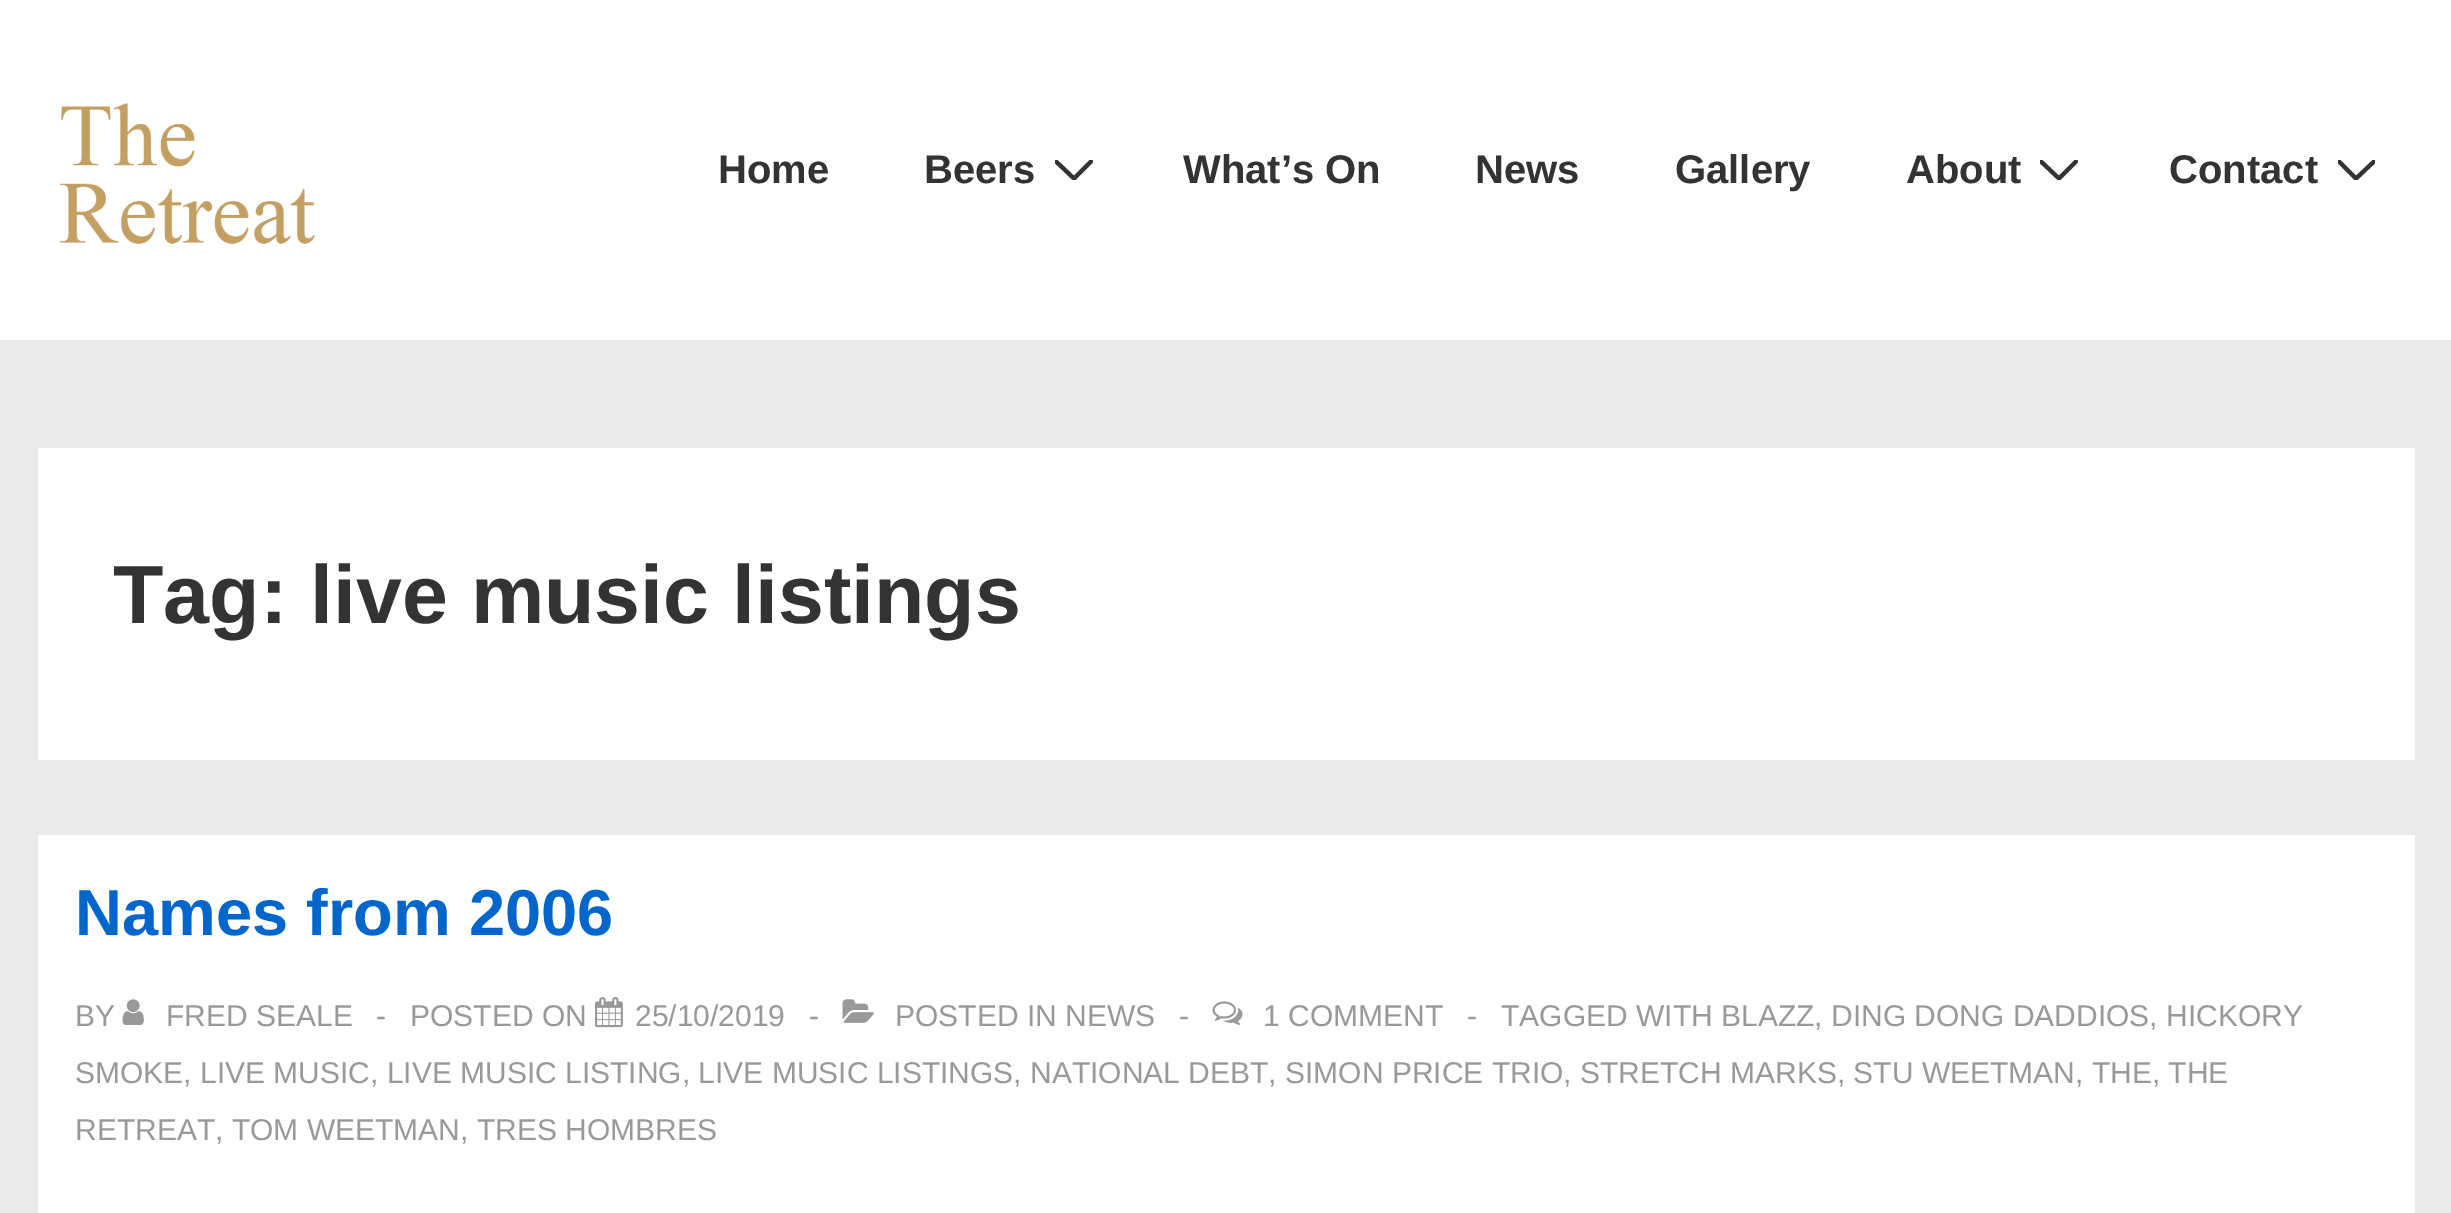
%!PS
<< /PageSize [2451 1213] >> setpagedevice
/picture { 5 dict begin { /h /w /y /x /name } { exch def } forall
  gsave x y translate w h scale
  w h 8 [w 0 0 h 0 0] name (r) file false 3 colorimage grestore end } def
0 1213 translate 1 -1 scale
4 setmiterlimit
0.918 setgray
0 0 2451 1213 rectfill
1 setgray
0 0 2451 340 rectfill
(img1.rgb) 59 103 257 141 picture
/LiberationSans-Bold [40 0 0 -40 0 0] selectfont
0.2 setgray
718 183 moveto (Home) show
924 183 moveto (Beers) show
gsave
1055 160 38 20 rectclip
4.1 setlinewidth
1 setlinecap
newpath 1056 161.5 moveto 1074 178.5 lineto 1091 161.5 lineto stroke
grestore
1183 183 moveto (What’s On) show
1475 183 moveto (News) show
1675 183 moveto (Gallery) show
1906 183 moveto (About) show
gsave
2040 160 38 20 rectclip
4.1 setlinewidth
1 setlinecap
newpath 2041 161.5 moveto 2059 178.5 lineto 2076 161.5 lineto stroke
grestore
2169 183 moveto (Contact) show
gsave
2338 160 37 20 rectclip
4.1 setlinewidth
1 setlinecap
newpath 2339 161.5 moveto 2356 178.5 lineto 2374 161.5 lineto stroke
grestore
1 setgray
38 448 2377 312 rectfill
/LiberationSans-Bold [82.5 0 0 -82.5 0 0] selectfont
0.2 setgray
113 623 moveto (Tag: live music listings) show
1 setgray
38 835 2377 378 rectfill
/LiberationSans-Bold [65 0 0 -65 0 0] selectfont
0 0.4 0.8 setrgbcolor
75 935 moveto (Names from 2006) show
/LiberationSans-Regular [30 0 0 -30 0 0] selectfont
0.6 setgray
75 1026 moveto (BY) show
(img2.rgb) 122 999 22 26 picture
166 1026 moveto (FRED SEALE) show
376 1026 moveto (-) show
410 1026 moveto (POSTED ON) show
(img3.rgb) 595 997 28 31 picture
635 1026 moveto (25/10/2019) show
809 1026 moveto (-) show
(img4.rgb) 842 999 32 24 picture
895 1026 moveto (POSTED IN NEWS) show
1179 1026 moveto (-) show
(img5.rgb) 1212 1001 31 24 picture
1263 1026 moveto (1 COMMENT) show
1467 1026 moveto (-) show
1501 1026 moveto (TAGGED WITH BLAZZ, DING DONG DADDIOS, HICKORY) show
75 1083 moveto (SMOKE, LIVE MUSIC, LIVE MUSIC LISTING, LIVE MUSIC LISTINGS, NATIONAL DEBT, SIMON PRICE TRIO, STRETCH MARKS, STU WEETMAN, THE, THE) show
75 1140 moveto (RETREAT, TOM WEETMAN, TRES HOMBRES) show
showpage
